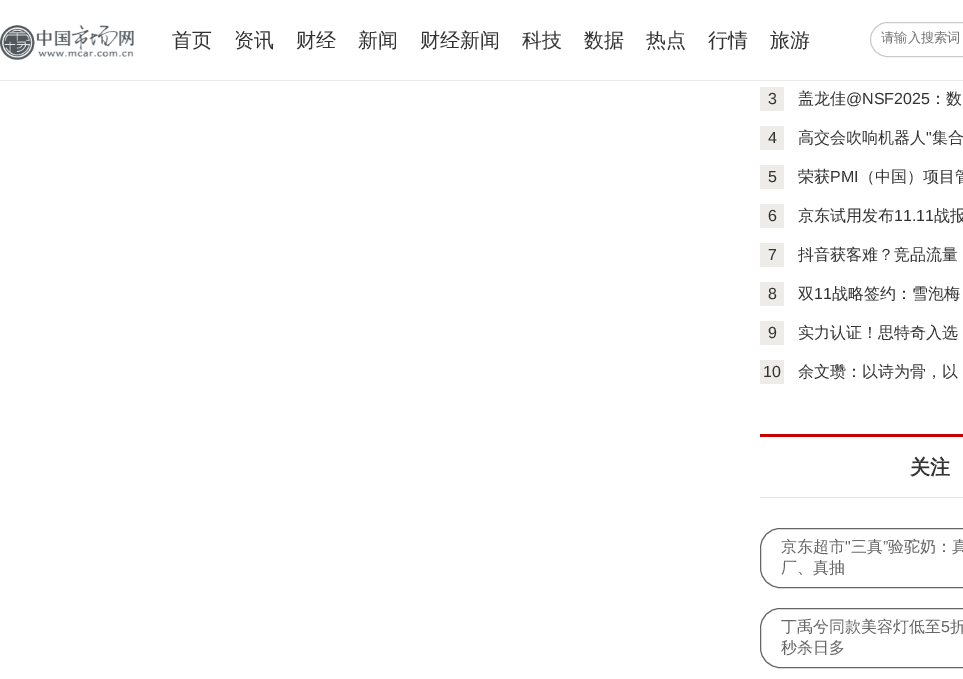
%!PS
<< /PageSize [963 679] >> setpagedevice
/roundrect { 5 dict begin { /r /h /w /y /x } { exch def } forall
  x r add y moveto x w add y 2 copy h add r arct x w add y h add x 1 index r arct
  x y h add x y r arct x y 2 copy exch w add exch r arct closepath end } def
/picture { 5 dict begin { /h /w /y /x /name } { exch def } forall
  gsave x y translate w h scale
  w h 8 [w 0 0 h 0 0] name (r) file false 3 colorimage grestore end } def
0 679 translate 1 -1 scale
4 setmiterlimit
1 setgray
0 0 963 679 rectfill
0.918 setgray
0 80 963 1 rectfill
(img1.rgb) 0 24 134 36 picture
/WenQuanYiZenHei-Medium [20 0 0 -20 0 0] selectfont
0.2 setgray
172 47 moveto (首页) show
234 47 moveto (资讯) show
296 47 moveto (财经) show
358 47 moveto (新闻) show
420 47 moveto (财经新闻) show
522 47 moveto (科技) show
584 47 moveto (数据) show
646 47 moveto (热点) show
708 47 moveto (行情) show
770 47 moveto (旅游) show
0.8 setgray
870.5 22.5 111 34 17 roundrect stroke
/WenQuanYiZenHei-Medium [13.25 0 0 -13.25 0 0] selectfont
0.459 setgray
881 42 moveto (请输入搜索词) show
0.929 0.925 0.91 setrgbcolor
760 87 24 24 rectfill
/LiberationSans-Regular [16 0 0 -16 0 0] selectfont
0.2 setgray
768 104 moveto (3) show
/WenQuanYiZenHei-Medium [16 0 0 -16 0 0] selectfont
798 104 moveto (盖龙佳) show
/LiberationSans-Regular [16 0 0 -16 0 0] selectfont
846 104 moveto (@NSF2025) show
/WenQuanYiZenHei-Medium [16 0 0 -16 0 0] selectfont
930 104 moveto (：数) show
0.929 0.925 0.91 setrgbcolor
760 126 24 24 rectfill
/LiberationSans-Regular [16 0 0 -16 0 0] selectfont
0.2 setgray
768 143 moveto (4) show
/WenQuanYiZenHei-Medium [16 0 0 -16 0 0] selectfont
798 143 moveto (高交会吹响机器人) show
/LiberationSans-Regular [16 0 0 -16 0 0] selectfont
926 143 moveto (") show
/WenQuanYiZenHei-Medium [16 0 0 -16 0 0] selectfont
932 143 moveto (集合) show
0.929 0.925 0.91 setrgbcolor
760 165 24 24 rectfill
/LiberationSans-Regular [16 0 0 -16 0 0] selectfont
0.2 setgray
768 182 moveto (5) show
/WenQuanYiZenHei-Medium [16 0 0 -16 0 0] selectfont
798 182 moveto (荣获) show
/LiberationSans-Regular [16 0 0 -16 0 0] selectfont
830 182 moveto (PMI) show
/WenQuanYiZenHei-Medium [16 0 0 -16 0 0] selectfont
859 182 moveto (（中国）项目管) show
0.929 0.925 0.91 setrgbcolor
760 204 24 24 rectfill
/LiberationSans-Regular [16 0 0 -16 0 0] selectfont
0.2 setgray
768 221 moveto (6) show
/WenQuanYiZenHei-Medium [16 0 0 -16 0 0] selectfont
798 221 moveto (京东试用发布) show
/LiberationSans-Regular [16 0 0 -16 0 0] selectfont
894 221 moveto (11.11) show
/WenQuanYiZenHei-Medium [16 0 0 -16 0 0] selectfont
934 221 moveto (战报) show
0.929 0.925 0.91 setrgbcolor
760 243 24 24 rectfill
/LiberationSans-Regular [16 0 0 -16 0 0] selectfont
0.2 setgray
768 260 moveto (7) show
/WenQuanYiZenHei-Medium [16 0 0 -16 0 0] selectfont
798 260 moveto (抖音获客难？竞品流量) show
0.929 0.925 0.91 setrgbcolor
760 282 24 24 rectfill
/LiberationSans-Regular [16 0 0 -16 0 0] selectfont
0.2 setgray
768 299 moveto (8) show
/WenQuanYiZenHei-Medium [16 0 0 -16 0 0] selectfont
798 299 moveto (双) show
/LiberationSans-Regular [16 0 0 -16 0 0] selectfont
814 299 moveto (11) show
/WenQuanYiZenHei-Medium [16 0 0 -16 0 0] selectfont
832 299 moveto (战略签约：雪泡梅) show
0.929 0.925 0.91 setrgbcolor
760 321 24 24 rectfill
/LiberationSans-Regular [16 0 0 -16 0 0] selectfont
0.2 setgray
768 338 moveto (9) show
/WenQuanYiZenHei-Medium [16 0 0 -16 0 0] selectfont
798 338 moveto (实力认证！思特奇入选) show
0.929 0.925 0.91 setrgbcolor
760 360 24 24 rectfill
/LiberationSans-Regular [16 0 0 -16 0 0] selectfont
0.2 setgray
763 377 moveto (10) show
/WenQuanYiZenHei-Medium [16 0 0 -16 0 0] selectfont
798 377 moveto (余文瓒：以诗为骨，以) show
0.784 0 0 setrgbcolor
760 434 203 3 rectfill
0.898 setgray
760 497 203 1 rectfill
/WenQuanYiZenHei-Bold [20 0 0 -20 0 0] selectfont
0.2 setgray
910 474 moveto (关注) show
0.4 setgray
760.5 528.5 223 59 19.5 roundrect stroke
/WenQuanYiZenHei-Medium [16 0 0 -16 0 0] selectfont
781 552 moveto (京东超市) show
/LiberationSans-Regular [16 0 0 -16 0 0] selectfont
845 552 moveto (") show
/WenQuanYiZenHei-Medium [16 0 0 -16 0 0] selectfont
851 552 moveto (三真) show
/LiberationSans-Regular [16 0 0 -16 0 0] selectfont
883 552 moveto (”) show
/WenQuanYiZenHei-Medium [16 0 0 -16 0 0] selectfont
888 552 moveto (验驼奶：真) show
781 573 moveto (厂、真抽) show
760.5 608.5 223 59 19.5 roundrect stroke
781 632 moveto (丁禹兮同款美容灯低至) show
/LiberationSans-Regular [16 0 0 -16 0 0] selectfont
941 632 moveto (5) show
/WenQuanYiZenHei-Medium [16 0 0 -16 0 0] selectfont
950 632 moveto (折) show
781 653 moveto (秒杀日多) show
showpage
